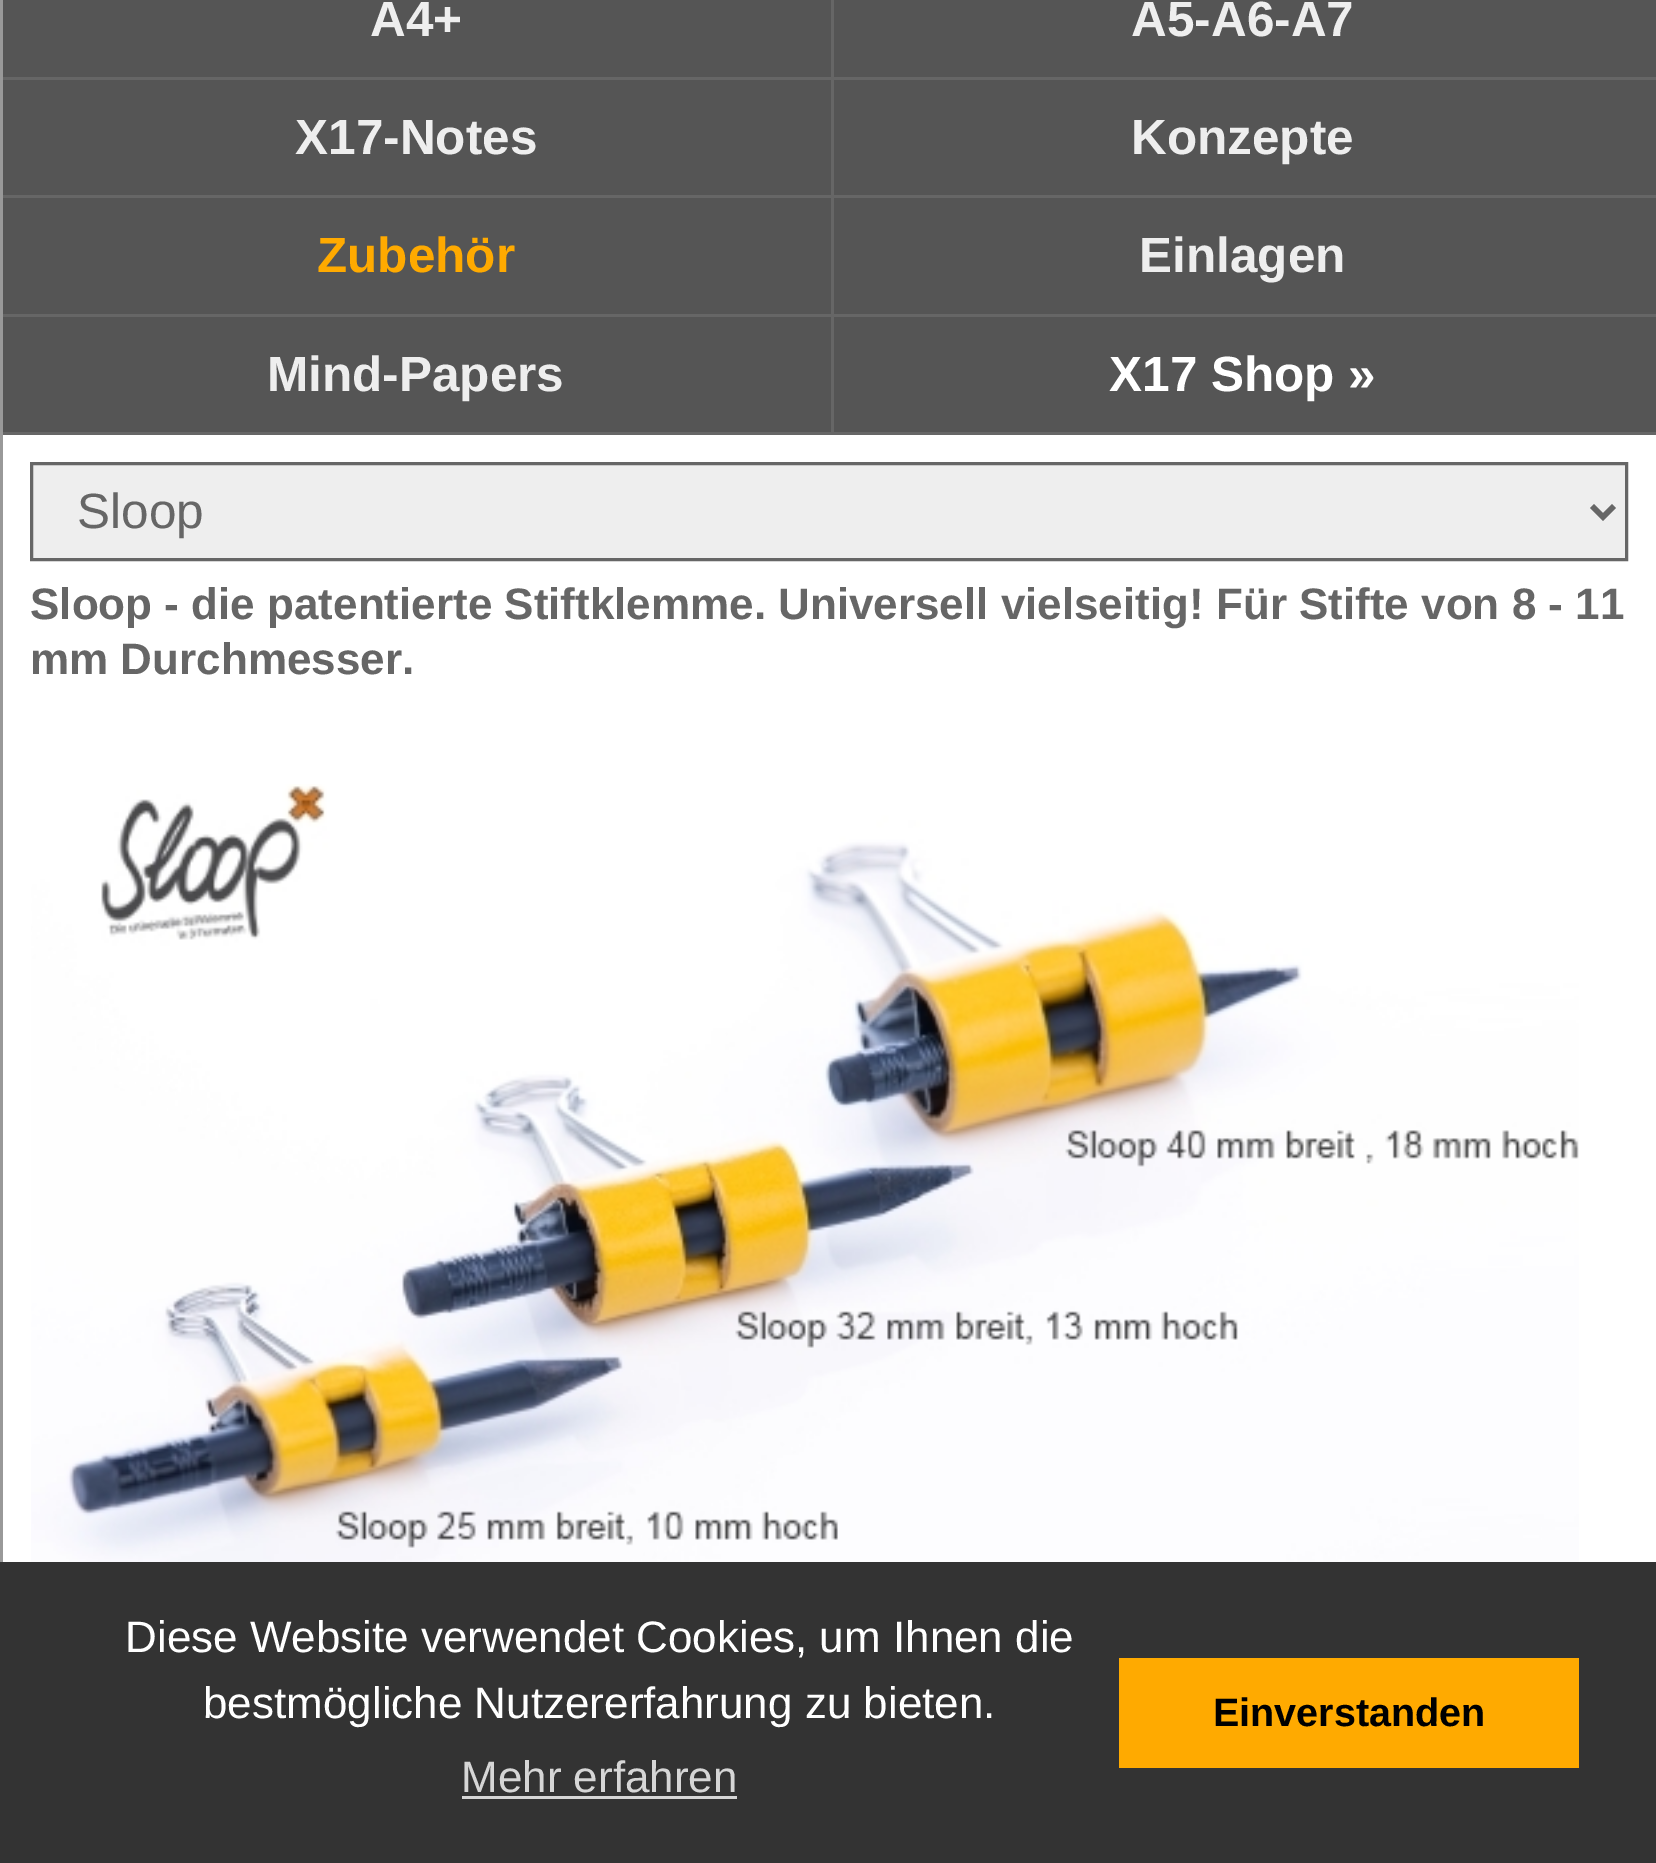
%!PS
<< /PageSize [1656 1863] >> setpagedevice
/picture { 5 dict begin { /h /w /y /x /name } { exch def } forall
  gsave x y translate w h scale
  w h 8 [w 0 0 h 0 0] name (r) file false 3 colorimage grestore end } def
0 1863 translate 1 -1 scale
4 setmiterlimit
1 setgray
0 0 1656 1863 rectfill
0.6 setgray
0 0 3 1562 rectfill
0.333 setgray
3 0 1653 432 rectfill
0.4 setgray
831 0 3 316 rectfill
3 77 1653 3 rectfill
/LiberationSans-Bold [49.5 0 0 -49.5 0 0] selectfont
0.933 setgray
370 36 moveto (A4+) show
1131 36 moveto (A5-A6-A7) show
0.4 setgray
3 195 1653 3 rectfill
0.933 setgray
295 154 moveto (X17-Notes) show
1131 154 moveto (Konzepte) show
0.4 setgray
3 314 1653 3 rectfill
1 0.667 0 setrgbcolor
317 272 moveto (Zubehör) show
0.933 setgray
1139 272 moveto (Einlagen) show
0.4 setgray
831 316 3 119 rectfill
3 432 1653 3 rectfill
0.933 setgray
267 391 moveto (Mind-Papers) show
1 setgray
1109 391 moveto (X17 Shop ») show
0.933 setgray
newpath 31.5 463.5 moveto 1626.5 463.5 lineto 1626.5 559.5 lineto 31.5 559.5 lineto closepath gsave fill grestore
0.4 setgray
3 setlinewidth
stroke
5.5 setlinewidth
newpath 1592 506 moveto 1603 517 lineto 1614 506 lineto stroke
/LiberationSans-Regular [49.5 0 0 -49.5 0 0] selectfont
77 528 moveto (Sloop) show
/LiberationSans-Bold [44 0 0 -44 0 0] selectfont
30 619 moveto (Sloop - die patentierte Stiftklemme. Universell vielseitig! Für Stifte von 8 - 11) show
30 674 moveto (mm Durchmesser.) show
(img1.rgb) 31 784 1548 778 picture
0.2 setgray
0 1562 1656 301 rectfill
/LiberationSans-Regular [44 0 0 -44 0 0] selectfont
1 setgray
125 1652 moveto (Diese Website verwendet Cookies, um Ihnen die) show
203 1718 moveto (bestmögliche Nutzererfahrung zu bieten.) show
0.839 setgray
461 1792 moveto (Mehr erfahren) show
462 1796 275 3 rectfill
1 0.667 0 setrgbcolor
1119 1658 460 110 rectfill
/LiberationSans-Bold [39.5 0 0 -39.5 0 0] selectfont
0 setgray
1213 1726 moveto (Einverstanden) show
showpage
